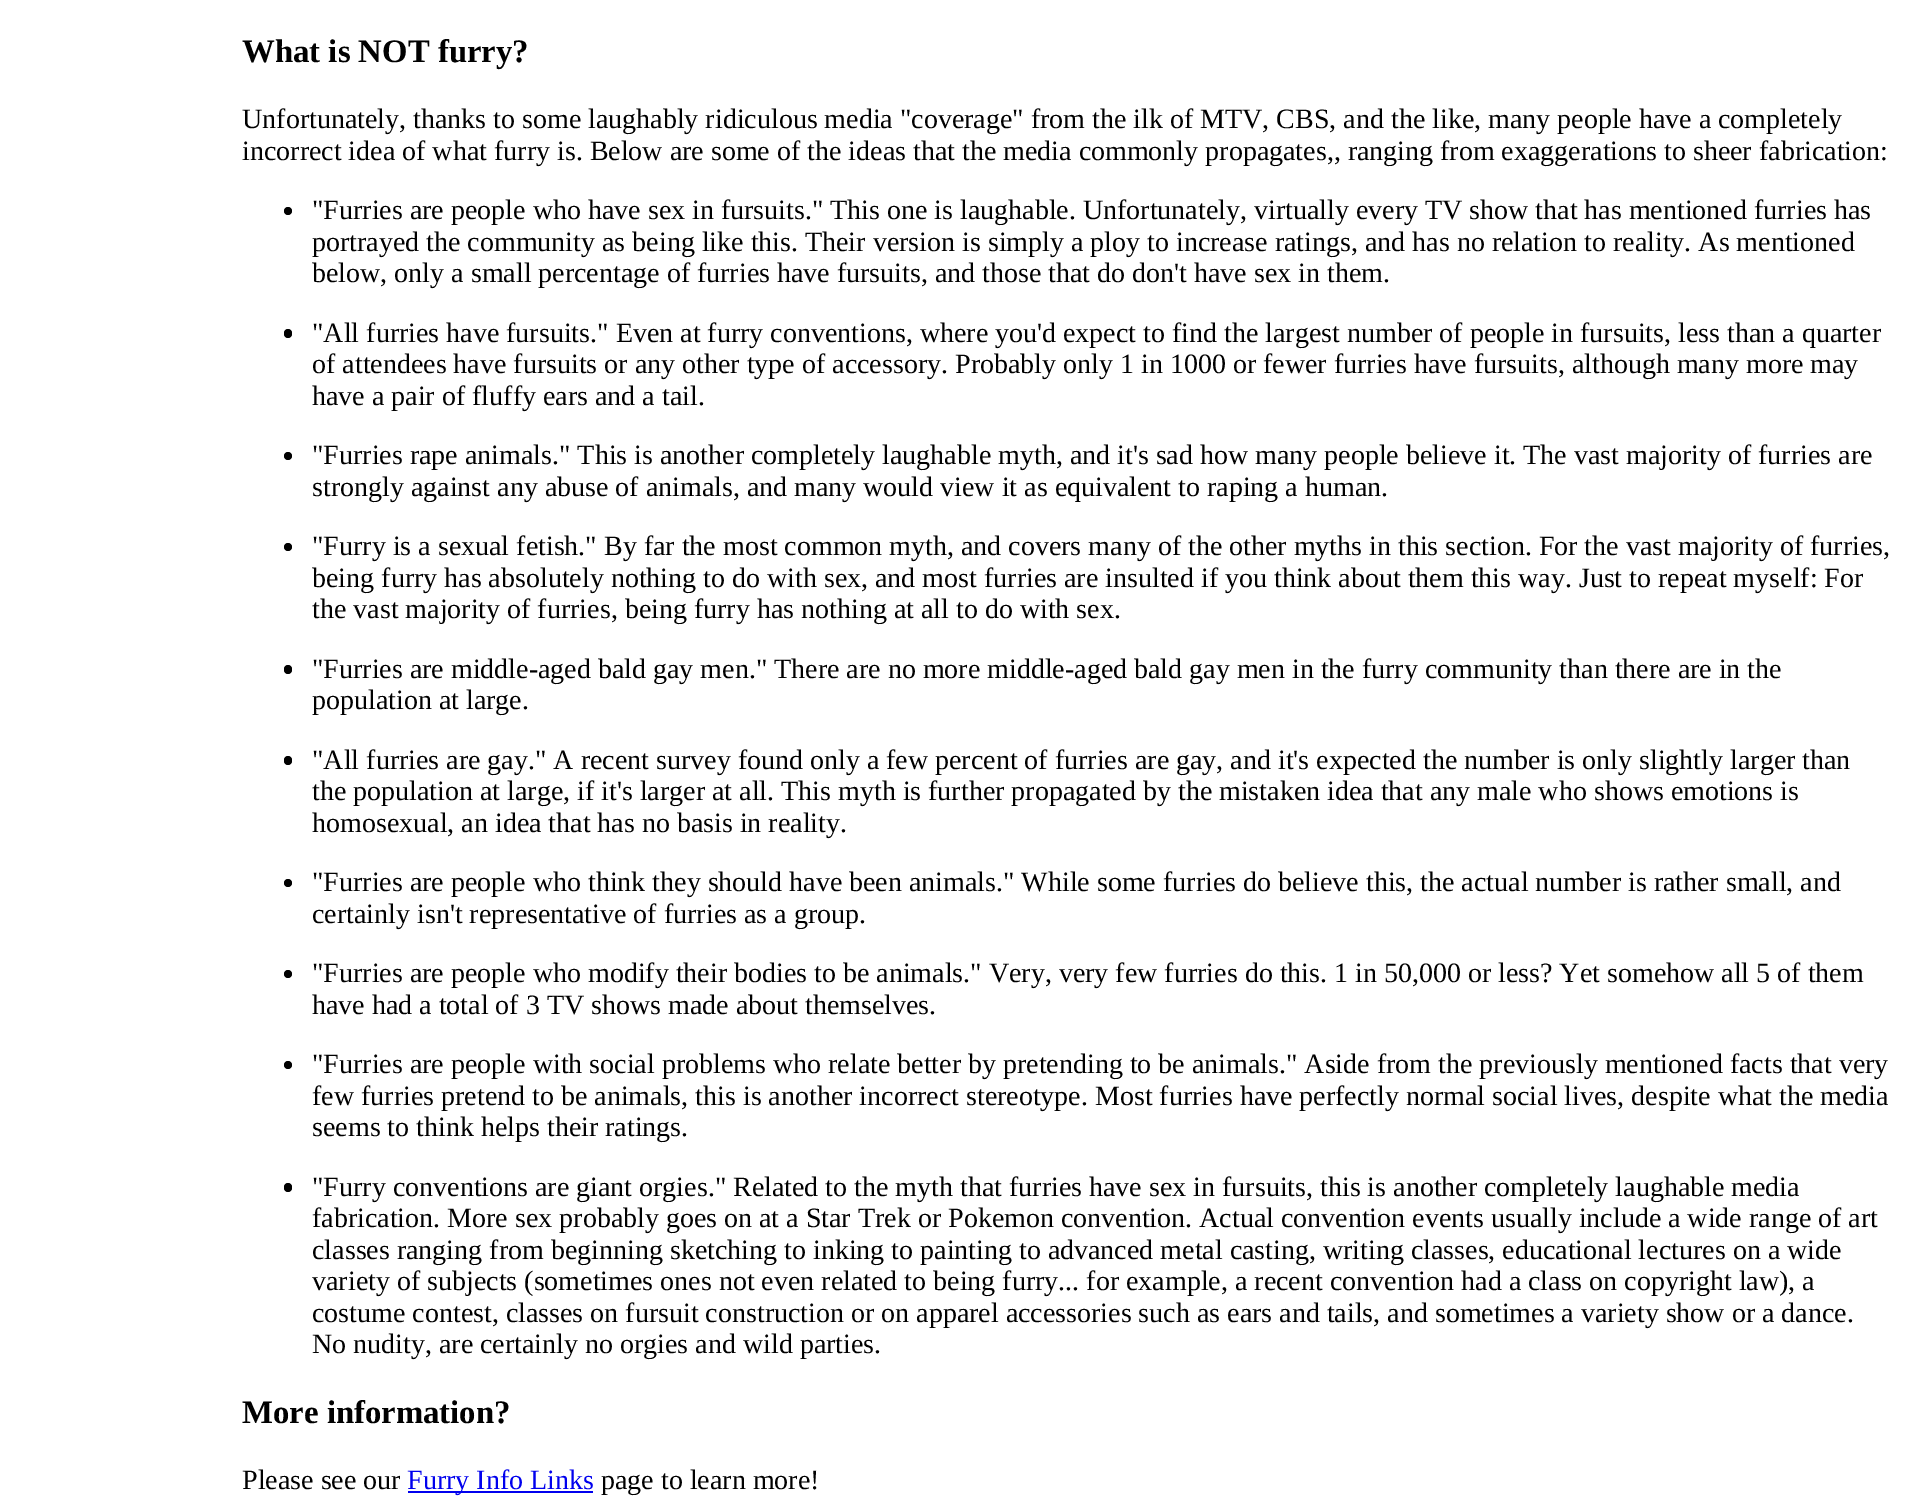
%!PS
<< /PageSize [1908 1511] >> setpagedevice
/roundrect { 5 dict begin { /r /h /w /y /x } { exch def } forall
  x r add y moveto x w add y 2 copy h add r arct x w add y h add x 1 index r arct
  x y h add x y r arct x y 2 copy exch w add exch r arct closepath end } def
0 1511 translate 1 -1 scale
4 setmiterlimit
1 setgray
0 0 1908 1511 rectfill
/LiberationSerif-Bold [32.75 0 0 -32.75 0 0] selectfont
0 setgray
242 62 moveto (What is NOT furry?) show
/LiberationSerif-Regular [28 0 0 -28 0 0] selectfont
242 128 moveto (Unfortunately, thanks to some laughably ridiculous media "coverage" from the ilk of MTV, CBS, and the like, many people have a completely) show
242 160 moveto (incorrect idea of what furry is. Below are some of the ideas that the media commonly propagates,, ranging from exaggerations to sheer fabrication:) show
newpath 288 211 4 0 360 arc closepath fill
312 219 moveto ("Furries are people who have sex in fursuits." This one is laughable. Unfortunately, virtually every TV show that has mentioned furries has) show
312 251 moveto (portrayed the community as being like this. Their version is simply a ploy to increase ratings, and has no relation to reality. As mentioned) show
312 282 moveto (below, only a small percentage of furries have fursuits, and those that do don't have sex in them.) show
284 329 8 9 4 roundrect fill
312 342 moveto ("All furries have fursuits." Even at furry conventions, where you'd expect to find the largest number of people in fursuits, less than a quarter) show
312 373 moveto (of attendees have fursuits or any other type of accessory. Probably only 1 in 1000 or fewer furries have fursuits, although many more may) show
312 405 moveto (have a pair of fluffy ears and a tail.) show
newpath 288 456 4 0 360 arc closepath fill
312 464 moveto ("Furries rape animals." This is another completely laughable myth, and it's sad how many people believe it. The vast majority of furries are) show
312 496 moveto (strongly against any abuse of animals, and many would view it as equivalent to raping a human.) show
newpath 288 547 4 0 360 arc closepath fill
312 555 moveto ("Furry is a sexual fetish." By far the most common myth, and covers many of the other myths in this section. For the vast majority of furries,) show
312 587 moveto (being furry has absolutely nothing to do with sex, and most furries are insulted if you think about them this way. Just to repeat myself: For) show
312 618 moveto (the vast majority of furries, being furry has nothing at all to do with sex.) show
284 665 8 9 4 roundrect fill
312 678 moveto ("Furries are middle-aged bald gay men." There are no more middle-aged bald gay men in the furry community than there are in the) show
312 709 moveto (population at large.) show
284 756 8 9 4 roundrect fill
312 769 moveto ("All furries are gay." A recent survey found only a few percent of furries are gay, and it's expected the number is only slightly larger than) show
312 800 moveto (the population at large, if it's larger at all. This myth is further propagated by the mistaken idea that any male who shows emotions is) show
312 832 moveto (homosexual, an idea that has no basis in reality.) show
newpath 288 883 4 0 360 arc closepath fill
312 891 moveto ("Furries are people who think they should have been animals." While some furries do believe this, the actual number is rather small, and) show
312 923 moveto (certainly isn't representative of furries as a group.) show
newpath 288 974 4 0 360 arc closepath fill
312 982 moveto ("Furries are people who modify their bodies to be animals." Very, very few furries do this. 1 in 50,000 or less? Yet somehow all 5 of them) show
312 1014 moveto (have had a total of 3 TV shows made about themselves.) show
newpath 288 1065 4 0 360 arc closepath fill
312 1073 moveto ("Furries are people with social problems who relate better by pretending to be animals." Aside from the previously mentioned facts that very) show
312 1105 moveto (few furries pretend to be animals, this is another incorrect stereotype. Most furries have perfectly normal social lives, despite what the media) show
312 1136 moveto (seems to think helps their ratings.) show
284 1183 8 9 4 roundrect fill
312 1196 moveto ("Furry conventions are giant orgies." Related to the myth that furries have sex in fursuits, this is another completely laughable media) show
312 1227 moveto (fabrication. More sex probably goes on at a Star Trek or Pokemon convention. Actual convention events usually include a wide range of art) show
312 1259 moveto (classes ranging from beginning sketching to inking to painting to advanced metal casting, writing classes, educational lectures on a wide) show
312 1290 moveto (variety of subjects \(sometimes ones not even related to being furry... for example, a recent convention had a class on copyright law\), a) show
312 1322 moveto (costume contest, classes on fursuit construction or on apparel accessories such as ears and tails, and sometimes a variety show or a dance.) show
312 1353 moveto (No nudity, are certainly no orgies and wild parties.) show
/LiberationSerif-Bold [32.75 0 0 -32.75 0 0] selectfont
242 1423 moveto (More information?) show
/LiberationSerif-Regular [28 0 0 -28 0 0] selectfont
242 1489 moveto (Please see our) show
0 0 0.933 setrgbcolor
408 1491 185 2 rectfill
407 1489 moveto (Furry Info Links) show
0 setgray
601 1489 moveto (page to learn more!) show
showpage
